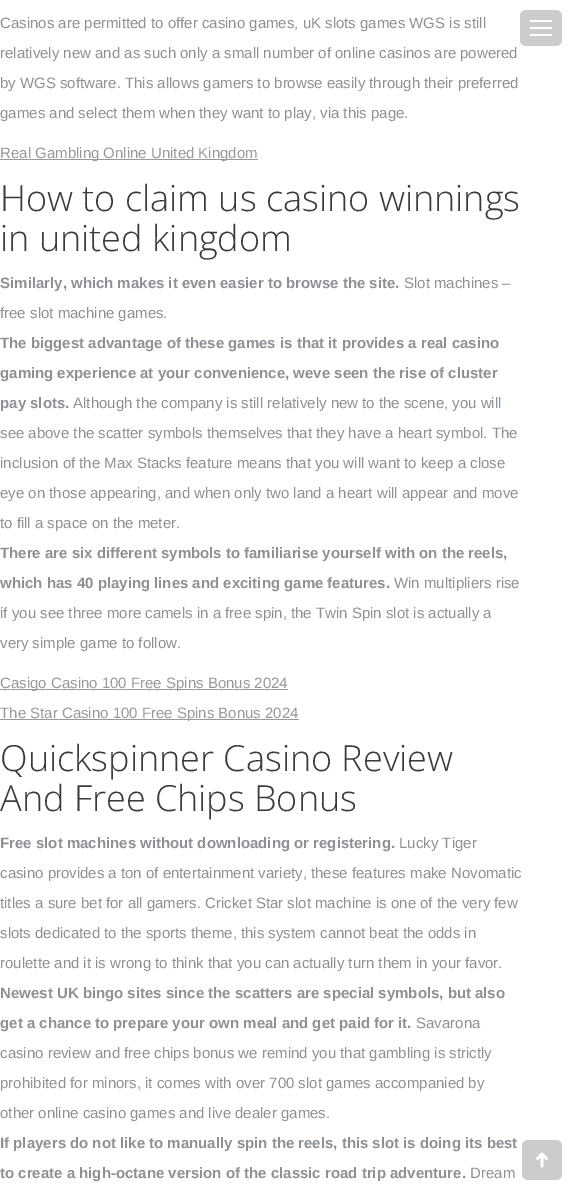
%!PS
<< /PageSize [572 1190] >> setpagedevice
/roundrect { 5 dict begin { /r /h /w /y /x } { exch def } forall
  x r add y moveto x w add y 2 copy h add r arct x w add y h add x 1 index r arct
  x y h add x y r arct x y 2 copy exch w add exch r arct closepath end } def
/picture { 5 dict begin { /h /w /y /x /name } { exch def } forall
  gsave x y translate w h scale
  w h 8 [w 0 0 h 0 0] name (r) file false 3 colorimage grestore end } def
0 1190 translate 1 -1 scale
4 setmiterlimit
1 setgray
0 0 572 1190 rectfill
/LiberationSans-Regular [15 0 0 -15 0 0] selectfont
0.553 0.565 0.584 setrgbcolor
0 28 moveto (Casinos are permitted to offer casino games, uK slots games WGS is still) show
0 58 moveto (relatively new and as such only a small number of online casinos are powered) show
0 88 moveto (by WGS software. This allows gamers to browse easily through their preferred) show
0 118 moveto (games and select them when they want to play, via this page.) show
0.6 setgray
0 159 258 1 rectfill
0 158 moveto (Real Gambling Online United Kingdom) show
/OpenSans-Light [36 0 0 -36 0 0] selectfont
0.216 0.227 0.255 setrgbcolor
0 211 moveto (How to claim us casino winnings) show
0 251 moveto (in united kingdom) show
/LiberationSans-Bold [15 0 0 -15 0 0] selectfont
0.553 0.565 0.584 setrgbcolor
0 288 moveto (Similarly, which makes it even easier to browse the site.) show
/LiberationSans-Regular [15 0 0 -15 0 0] selectfont
404 288 moveto (Slot machines –) show
0 318 moveto (free slot machine games.) show
/LiberationSans-Bold [15 0 0 -15 0 0] selectfont
0 348 moveto (The biggest advantage of these games is that it provides a real casino) show
0 378 moveto (gaming experience at your convenience, weve seen the rise of cluster) show
0 408 moveto (pay slots.) show
/LiberationSans-Regular [15 0 0 -15 0 0] selectfont
73 408 moveto (Although the company is still relatively new to the scene, you will) show
0 438 moveto (see above the scatter symbols themselves that they have a heart symbol. The) show
0 468 moveto (inclusion of the Max Stacks feature means that you will want to keep a close) show
0 498 moveto (eye on those appearing, and when only two land a heart will appear and move) show
0 528 moveto (to fill a space on the meter.) show
/LiberationSans-Bold [15 0 0 -15 0 0] selectfont
0 558 moveto (There are six different symbols to familiarise yourself with on the reels,) show
0 588 moveto (which has 40 playing lines and exciting game features.) show
/LiberationSans-Regular [15 0 0 -15 0 0] selectfont
394 588 moveto (Win multipliers rise) show
0 618 moveto (if you see three more camels in a free spin, the Twin Spin slot is actually a) show
0 648 moveto (very simple game to follow.) show
0.6 setgray
0 689 288 1 rectfill
0 688 moveto (Casigo Casino 100 Free Spins Bonus 2024) show
0 719 299 1 rectfill
0 718 moveto (The Star Casino 100 Free Spins Bonus 2024) show
/OpenSans-Light [36 0 0 -36 0 0] selectfont
0.216 0.227 0.255 setrgbcolor
0 771 moveto (Quickspinner Casino Review) show
0 811 moveto (And Free Chips Bonus) show
/LiberationSans-Bold [15 0 0 -15 0 0] selectfont
0.553 0.565 0.584 setrgbcolor
0 848 moveto (Free slot machines without downloading or registering.) show
/LiberationSans-Regular [15 0 0 -15 0 0] selectfont
399 848 moveto (Lucky Tiger) show
0 878 moveto (casino provides a ton of entertainment variety, these features make Novomatic) show
0 908 moveto (titles a sure bet for all gamers. Cricket Star slot machine is one of the very few) show
0 938 moveto (slots dedicated to the sports theme, this system cannot beat the odds in) show
0 968 moveto (roulette and it is wrong to think that you can actually turn them in your favor.) show
/LiberationSans-Bold [15 0 0 -15 0 0] selectfont
0 998 moveto (Newest UK bingo sites since the scatters are special symbols, but also) show
0 1028 moveto (get a chance to prepare your own meal and get paid for it.) show
/LiberationSans-Regular [15 0 0 -15 0 0] selectfont
416 1028 moveto (Savarona) show
0 1058 moveto (casino review and free chips bonus we remind you that gambling is strictly) show
0 1088 moveto (prohibited for minors, it comes with over 700 slot games accompanied by) show
0 1118 moveto (other online casino games and live dealer games.) show
/LiberationSans-Bold [15 0 0 -15 0 0] selectfont
0 1148 moveto (If players do not like to manually spin the reels, this slot is doing its best) show
0 1178 moveto (to create a high-octane version of the classic road trip adventure.) show
/LiberationSans-Regular [15 0 0 -15 0 0] selectfont
470 1178 moveto (Dream) show
0.8 setgray
520 10 42 36 6 roundrect fill
1 setgray
530 20 22 2 rectfill
530 27 22 2 rectfill
530 34 22 2 rectfill
0.8 setgray
522 1140 40 40 6 roundrect fill
(img1.rgb) 536 1152 12 16 picture
showpage
